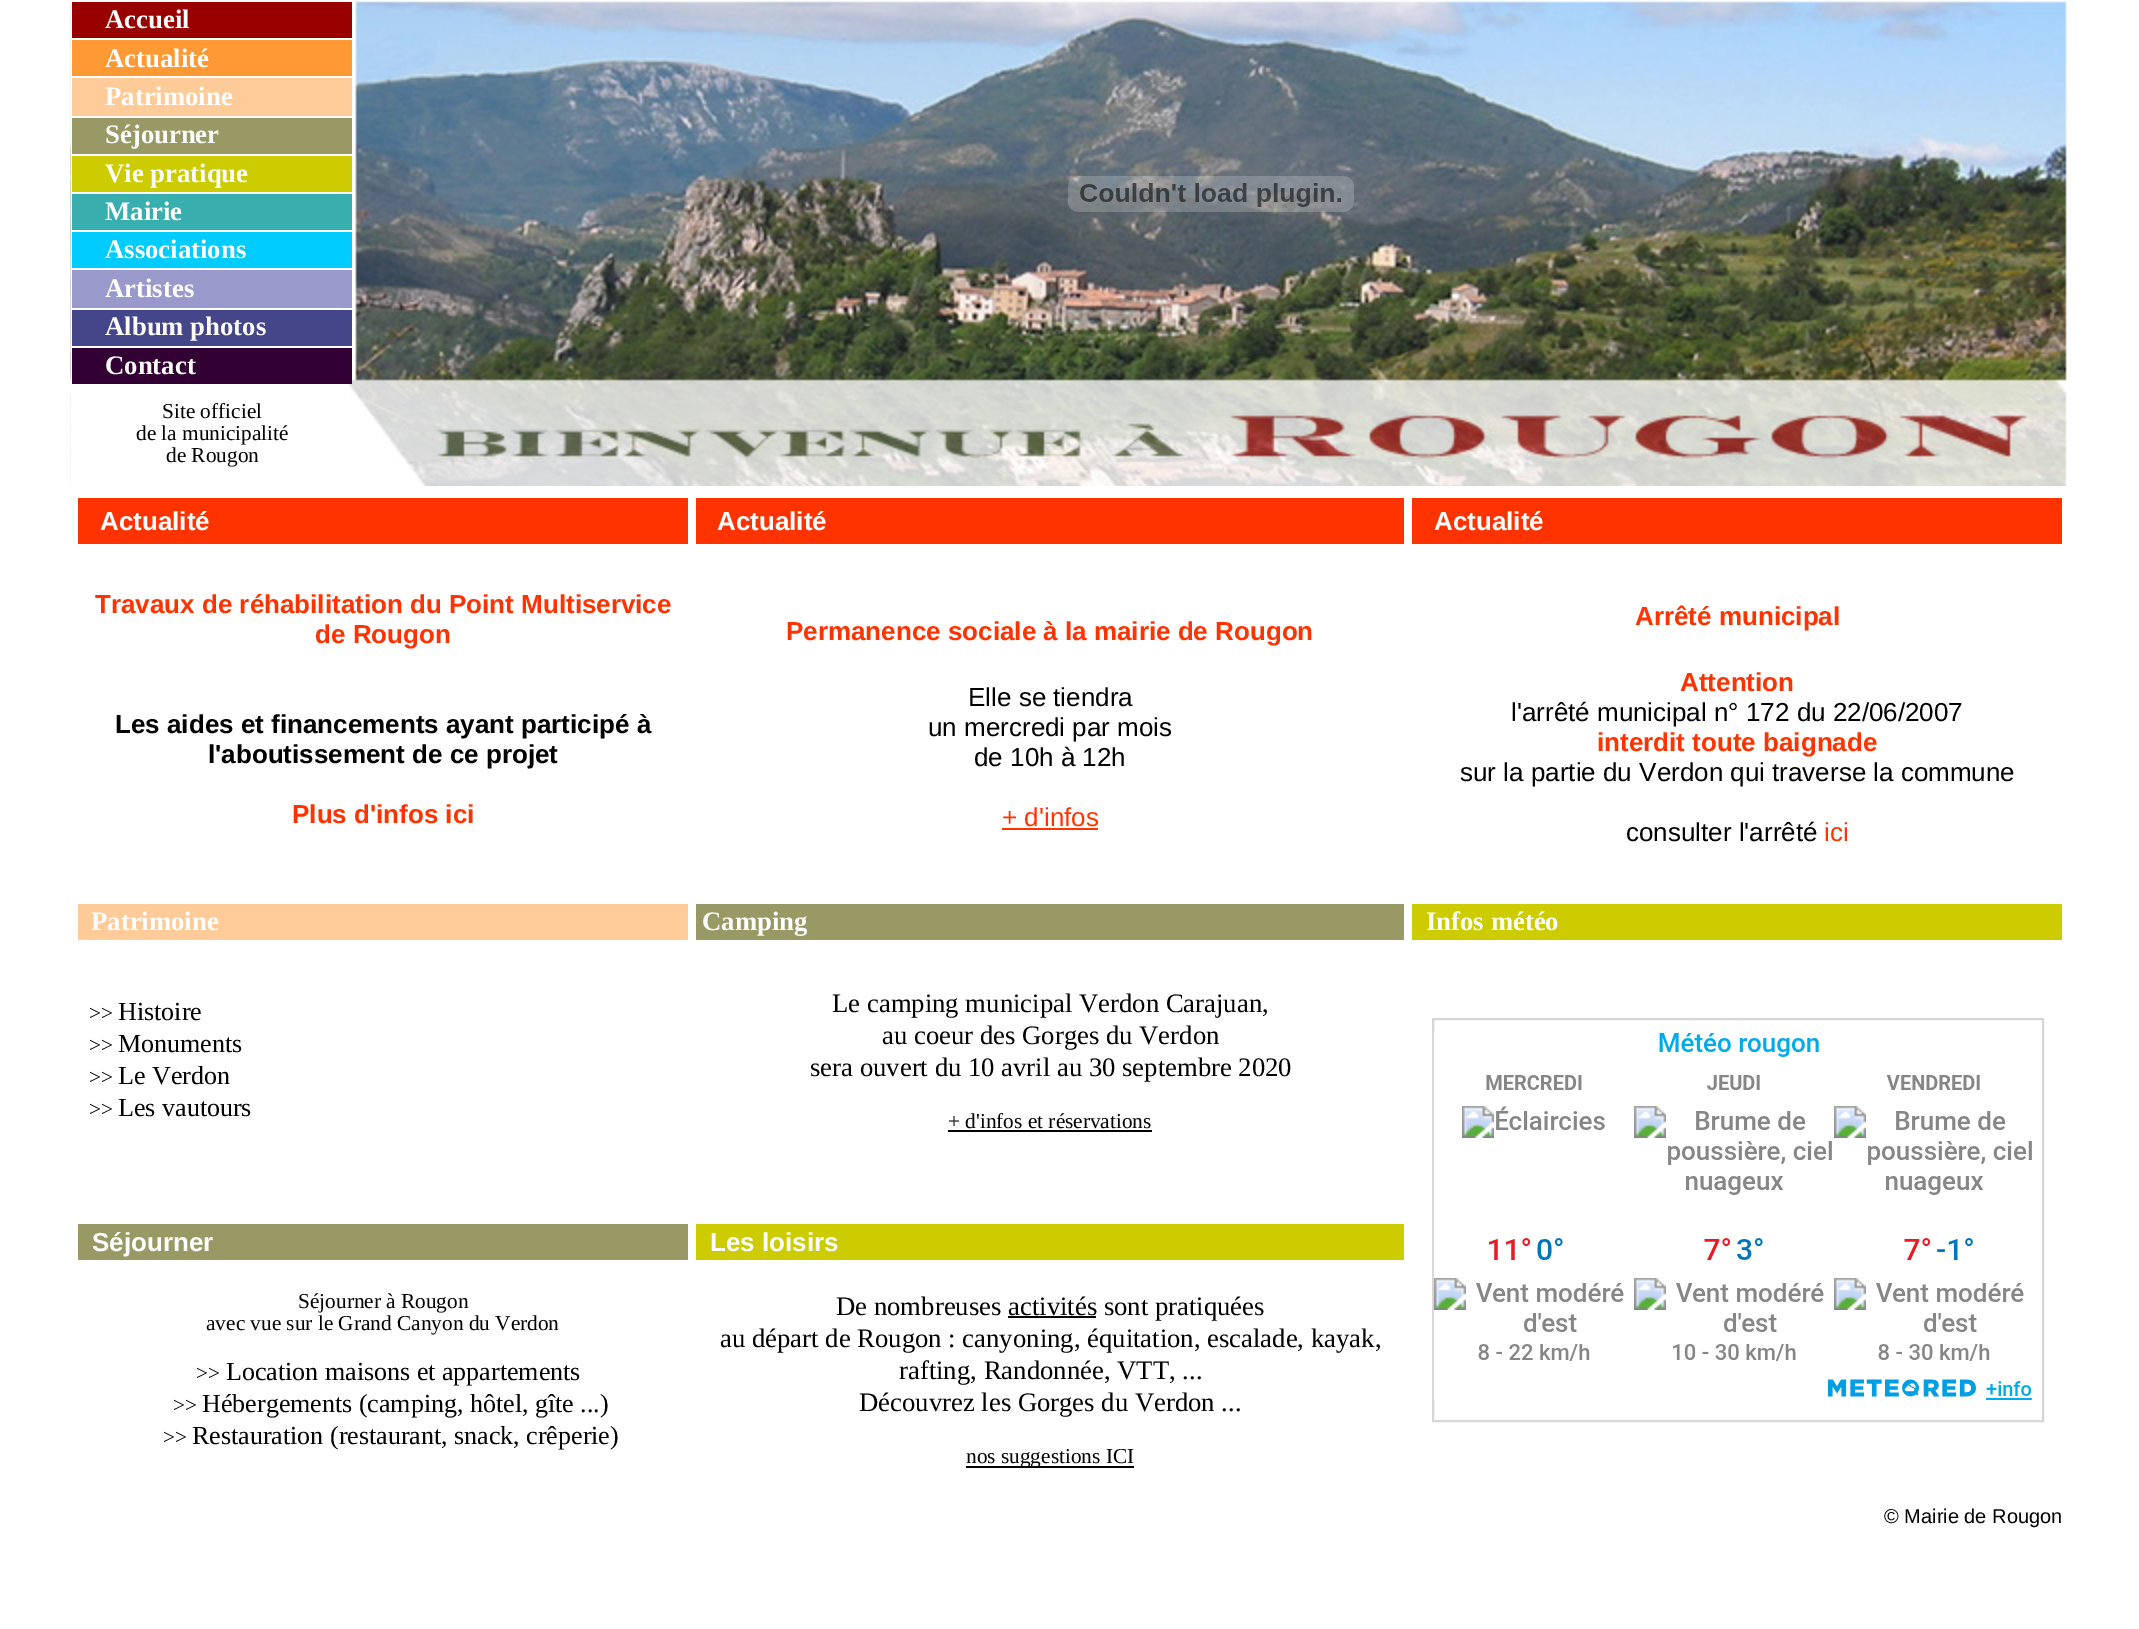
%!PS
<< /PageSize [2139 1629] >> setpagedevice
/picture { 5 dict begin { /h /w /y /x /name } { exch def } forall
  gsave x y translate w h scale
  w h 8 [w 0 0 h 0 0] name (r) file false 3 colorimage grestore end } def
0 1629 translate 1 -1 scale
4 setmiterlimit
1 setgray
0 0 2139 1629 rectfill
(img1.rgb) 70 0 1997 486 picture
0.6 0 0 setrgbcolor
72 2 280 36 rectfill
/LiberationSerif-Bold [26.7 0 0 -26.7 0 0] selectfont
1 setgray
105 28 moveto (Accueil) show
(img2.rgb) 1068 176 286 36 picture
1 0.6 0.2 setrgbcolor
72 40 280 36 rectfill
1 setgray
105 67 moveto (Actualité) show
1 0.8 0.6 setrgbcolor
72 78 280 38 rectfill
1 setgray
105 105 moveto (Patrimoine) show
0.6 0.6 0.4 setrgbcolor
72 118 280 36 rectfill
1 setgray
105 143 moveto (Séjourner) show
0.8 0.8 0 setrgbcolor
72 156 280 36 rectfill
1 setgray
105 182 moveto (Vie pratique) show
0.224 0.682 0.682 setrgbcolor
72 194 280 36 rectfill
1 setgray
105 220 moveto (Mairie) show
0 0.8 1 setrgbcolor
72 232 280 36 rectfill
1 setgray
105 258 moveto (Associations) show
0.6 0.6 0.8 setrgbcolor
72 270 280 38 rectfill
1 setgray
105 297 moveto (Artistes) show
0.271 0.271 0.537 setrgbcolor
72 310 280 36 rectfill
1 setgray
105 335 moveto (Album photos) show
0.2 0 0.2 setrgbcolor
72 348 280 36 rectfill
1 setgray
105 374 moveto (Contact) show
/LiberationSerif-Regular [21.3 0 0 -21.3 0 0] selectfont
0 setgray
162 418 moveto (Site officiel) show
136 440 moveto (de la municipalité) show
166 462 moveto (de Rougon) show
1 0.2 0 setrgbcolor
78 498 610 46 rectfill
/LiberationSans-Bold [26 0 0 -26 0 0] selectfont
1 setgray
100 530 moveto (Actualité) show
1 0.2 0 setrgbcolor
696 498 708 46 rectfill
1 setgray
717 530 moveto (Actualité) show
1 0.2 0 setrgbcolor
1412 498 650 46 rectfill
1 setgray
1434 530 moveto (Actualité) show
1 0.2 0 setrgbcolor
95 613 moveto (Travaux de réhabilitation du Point Multiservice) show
315 643 moveto (de Rougon) show
0 setgray
115 733 moveto (Les aides et financements ayant participé à) show
208 763 moveto (l'aboutissement de ce projet) show
1 0.2 0 setrgbcolor
292 823 moveto (Plus d'infos ici) show
786 640 moveto (Permanence sociale à la mairie de Rougon) show
/LiberationSans-Regular [26 0 0 -26 0 0] selectfont
0 setgray
968 706 moveto (Elle se tiendra) show
928 736 moveto (un mercredi par mois) show
974 766 moveto (de 10h à 12h) show
1 0.2 0 setrgbcolor
1002 826 moveto (+ d'infos) show
1002 828 96 2 rectfill
/LiberationSans-Bold [26 0 0 -26 0 0] selectfont
1635 625 moveto (Arrêté municipal) show
1680 691 moveto (Attention) show
/LiberationSans-Regular [26 0 0 -26 0 0] selectfont
0 setgray
1511 721 moveto (l'arrêté municipal n° 172 du 22/06/2007) show
/LiberationSans-Bold [26 0 0 -26 0 0] selectfont
1 0.2 0 setrgbcolor
1597 751 moveto (interdit toute baignade) show
/LiberationSans-Regular [26 0 0 -26 0 0] selectfont
0 setgray
1460 781 moveto (sur la partie du Verdon qui traverse la commune) show
1626 841 moveto (consulter l'arrêté) show
1 0.2 0 setrgbcolor
1824 841 moveto (ici) show
1 0.8 0.6 setrgbcolor
78 904 610 36 rectfill
/LiberationSerif-Bold [26.7 0 0 -26.7 0 0] selectfont
1 setgray
91 930 moveto (Patrimoine) show
0.6 0.6 0.4 setrgbcolor
696 904 708 36 rectfill
1 setgray
702 930 moveto (Camping) show
0.8 0.8 0 setrgbcolor
1412 904 650 36 rectfill
1 setgray
1426 930 moveto (Infos météo) show
/LiberationSerif-Regular [21.3 0 0 -21.3 0 0] selectfont
0 setgray
89 1020 moveto (>>) show
/LiberationSerif-Regular [26 0 0 -26 0 0] selectfont
118 1020 moveto (Histoire) show
/LiberationSerif-Regular [21.3 0 0 -21.3 0 0] selectfont
89 1052 moveto (>>) show
/LiberationSerif-Regular [26 0 0 -26 0 0] selectfont
118 1052 moveto (Monuments) show
/LiberationSerif-Regular [21.3 0 0 -21.3 0 0] selectfont
89 1084 moveto (>>) show
/LiberationSerif-Regular [26 0 0 -26 0 0] selectfont
118 1084 moveto (Le Verdon) show
/LiberationSerif-Regular [21.3 0 0 -21.3 0 0] selectfont
89 1116 moveto (>>) show
/LiberationSerif-Regular [26 0 0 -26 0 0] selectfont
118 1116 moveto (Les vautours) show
/LiberationSerif-Regular [26.7 0 0 -26.7 0 0] selectfont
832 1012 moveto (Le camping municipal Verdon Carajuan,) show
882 1044 moveto (au coeur des Gorges du Verdon) show
810 1076 moveto (sera ouvert du 10 avril au 30 septembre 2020) show
/LiberationSerif-Regular [21.3 0 0 -21.3 0 0] selectfont
948 1128 moveto (+ d'infos et réservations) show
948 1130 204 2 rectfill
0.839 setgray
2 setlinewidth
1433 1019 610 402 rectstroke
(img3.rgb) 1434 1033 598 367 picture
0.6 0.6 0.4 setrgbcolor
78 1224 610 36 rectfill
/LiberationSans-Bold [26 0 0 -26 0 0] selectfont
1 setgray
92 1251 moveto (Séjourner) show
0.8 0.8 0 setrgbcolor
696 1224 708 36 rectfill
1 setgray
710 1251 moveto (Les loisirs) show
/LiberationSerif-Regular [21.3 0 0 -21.3 0 0] selectfont
0 setgray
298 1308 moveto (Séjourner à Rougon) show
206 1330 moveto (avec vue sur le Grand Canyon du Verdon) show
196 1380 moveto (>>) show
/LiberationSerif-Regular [26 0 0 -26 0 0] selectfont
226 1380 moveto (Location maisons et appartements) show
/LiberationSerif-Regular [21.3 0 0 -21.3 0 0] selectfont
173 1412 moveto (>>) show
/LiberationSerif-Regular [26 0 0 -26 0 0] selectfont
202 1412 moveto (Hébergements \(camping, hôtel, gîte ...\)) show
/LiberationSerif-Regular [21.3 0 0 -21.3 0 0] selectfont
163 1444 moveto (>>) show
/LiberationSerif-Regular [26 0 0 -26 0 0] selectfont
192 1444 moveto (Restauration \(restaurant, snack, crêperie\)) show
/LiberationSerif-Regular [26.7 0 0 -26.7 0 0] selectfont
836 1315 moveto (De nombreuses activités sont pratiquées) show
1008 1316 88 2 rectfill
720 1347 moveto (au départ de Rougon : canyoning, équitation, escalade, kayak,) show
899 1379 moveto (rafting, Randonnée, VTT, ...) show
859 1411 moveto (Découvrez les Gorges du Verdon ...) show
966 1466 168 2 rectfill
/LiberationSerif-Regular [21.3 0 0 -21.3 0 0] selectfont
966 1463 moveto (nos suggestions ICI) show
/LiberationSans-Regular [20 0 0 -20 0 0] selectfont
1884 1523 moveto (© Mairie de Rougon) show
showpage
